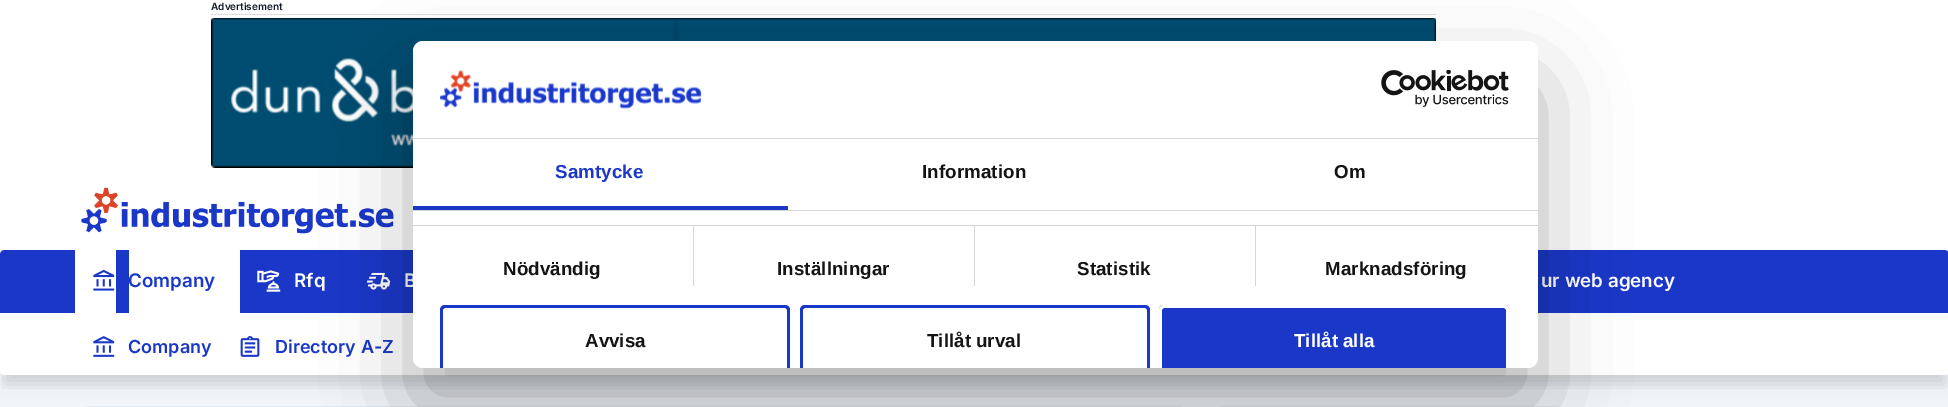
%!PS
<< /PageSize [1948 407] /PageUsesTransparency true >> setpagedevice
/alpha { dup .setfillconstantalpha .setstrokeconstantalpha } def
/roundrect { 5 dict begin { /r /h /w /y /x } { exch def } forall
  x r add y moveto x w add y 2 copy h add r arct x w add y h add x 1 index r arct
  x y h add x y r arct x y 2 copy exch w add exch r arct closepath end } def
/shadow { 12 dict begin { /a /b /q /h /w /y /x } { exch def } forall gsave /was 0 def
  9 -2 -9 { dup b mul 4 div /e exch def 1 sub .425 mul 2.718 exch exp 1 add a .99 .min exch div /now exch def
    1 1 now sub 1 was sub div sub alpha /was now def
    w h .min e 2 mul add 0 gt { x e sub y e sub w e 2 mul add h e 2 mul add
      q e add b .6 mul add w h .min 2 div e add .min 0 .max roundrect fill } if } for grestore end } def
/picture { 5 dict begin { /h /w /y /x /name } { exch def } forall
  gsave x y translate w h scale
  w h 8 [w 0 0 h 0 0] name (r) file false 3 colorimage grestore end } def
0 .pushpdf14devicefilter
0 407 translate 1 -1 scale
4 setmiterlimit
0.945 0.961 0.976 setrgbcolor
0 0 1948 407 rectfill
1 setgray
0 0 1948 250 rectfill
0.867 setgray
211 14 1225 1 rectfill
/Inter-SemiBold [10 0 0 -10 0 0] selectfont
0.067 0.094 0.153 setrgbcolor
211 10 moveto (Advertisement) show
(img1.rgb) 211 18 1225 150 picture
(img2.rgb) 81 187 313 47 picture
0.886 0.91 0.941 setrgbcolor
81.5 406.5 1107 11 9.5 roundrect stroke
1214.5 406.5 351 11 9.5 roundrect stroke
0 setgray
4 266 1941 118 1 8 0.07 shadow
0.102 0.216 0.784 setrgbcolor
newpath 5 250 moveto 1944 250 lineto 1947 250 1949 252 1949 255 curveto 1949 313 lineto 0 313 lineto 0 255 lineto 0 252 2 250 5 250 curveto closepath fill
1 setgray
newpath 0 313 moveto 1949 313 lineto 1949 370 lineto 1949 373 1947 375 1944 375 curveto 5 375 lineto 2 375 0 373 0 370 curveto closepath fill
gsave
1 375 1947 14 rectclip
0 setgray
4 266 1941 118 0 8 0.07 shadow
grestore
75 250 41 63 rectfill
129 250 111 63 rectfill
(img3.rgb) 93 269 22 22 picture
/Inter-SemiBold [18.75 0 0 -18.75 0 0] selectfont
0.102 0.216 0.784 setrgbcolor
128 287 moveto (Company) show
(img4.rgb) 257 270 24 22 picture
1 setgray
294 287 moveto (Rfq) show
(img5.rgb) 366 272 25 18 picture
404 287 moveto (B) show
1541 287 moveto (ur web agency) show
(img6.rgb) 93 336 22 21 picture
/Inter-SemiBold [18 0 0 -18 0 0] selectfont
0.102 0.216 0.784 setrgbcolor
128 353 moveto (Company) show
(img7.rgb) 240 336 20 21 picture
275 353 moveto (Directory A-Z) show
0 setgray
413 81 1125 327 10 42.5 0.3 shadow
1 setgray
413 41 1125 327 10 roundrect fill
0.839 setgray
413 138 1125 1 rectfill
(img8.rgb) 440 70 262 39 picture
(img9.rgb) 1381 70 128 37 picture
413 210 1125 1 rectfill
0.102 0.216 0.784 setrgbcolor
413 206 375 4 rectfill
/LiberationSans-Bold [18.75 0 0 -18.75 0 0] selectfont
555 178 moveto 0.1 0 (Samtycke) ashow
0.078 setgray
922 178 moveto 0.1 0 (Information) ashow
1334 178 moveto 0.1 0 (Om) ashow
0.839 setgray
413 225 1125 1 rectfill
693 226 1 60 rectfill
0.078 setgray
503 275 moveto 0.1 0 (Nödvändig) ashow
0.839 setgray
974 226 1 60 rectfill
0.078 setgray
777 275 moveto 0.1 0 (Inställningar) ashow
0.839 setgray
1255 226 1 60 rectfill
0.078 setgray
1077 275 moveto 0.1 0 (Statistik) ashow
1325 275 moveto 0.1 0 (Marknadsföring) ashow
0.102 0.216 0.784 setrgbcolor
newpath 445 305 moveto 442 305 440 307 440 310 curveto 440 368 lineto 443 368 lineto 443 310 lineto 443 309 444 308 445 308 curveto 785 308 lineto 786 308 787 309 787 310 curveto 787 368 lineto 790 368 lineto 790 310 lineto 790 307 788 305 785 305 curveto closepath fill
0.078 setgray
585 347 moveto (Avvisa) show
0.102 0.216 0.784 setrgbcolor
newpath 805 305 moveto 802 305 800 307 800 310 curveto 800 368 lineto 803 368 lineto 803 310 lineto 803 309 804 308 805 308 curveto 1145 308 lineto 1146 308 1147 309 1147 310 curveto 1147 368 lineto 1150 368 lineto 1150 310 lineto 1150 307 1148 305 1145 305 curveto closepath fill
0.078 setgray
927 347 moveto (Tillåt urval) show
0.102 0.216 0.784 setrgbcolor
newpath 1164 305 moveto 1504 305 lineto 1507 305 1509 307 1509 310 curveto 1509 368 lineto 1159 368 lineto 1159 310 lineto 1159 307 1161 305 1164 305 curveto closepath fill
1 setgray
newpath 1164 305 moveto 1161 305 1159 307 1159 310 curveto 1159 368 lineto 1162 368 lineto 1162 310 lineto 1162 309 1163 308 1164 308 curveto 1504 308 lineto 1505 308 1506 309 1506 310 curveto 1506 368 lineto 1509 368 lineto 1509 310 lineto 1509 307 1507 305 1504 305 curveto closepath fill
1294 347 moveto (Tillåt alla) show
1529 367 1 1 rectfill
.poppdf14devicefilter showpage
